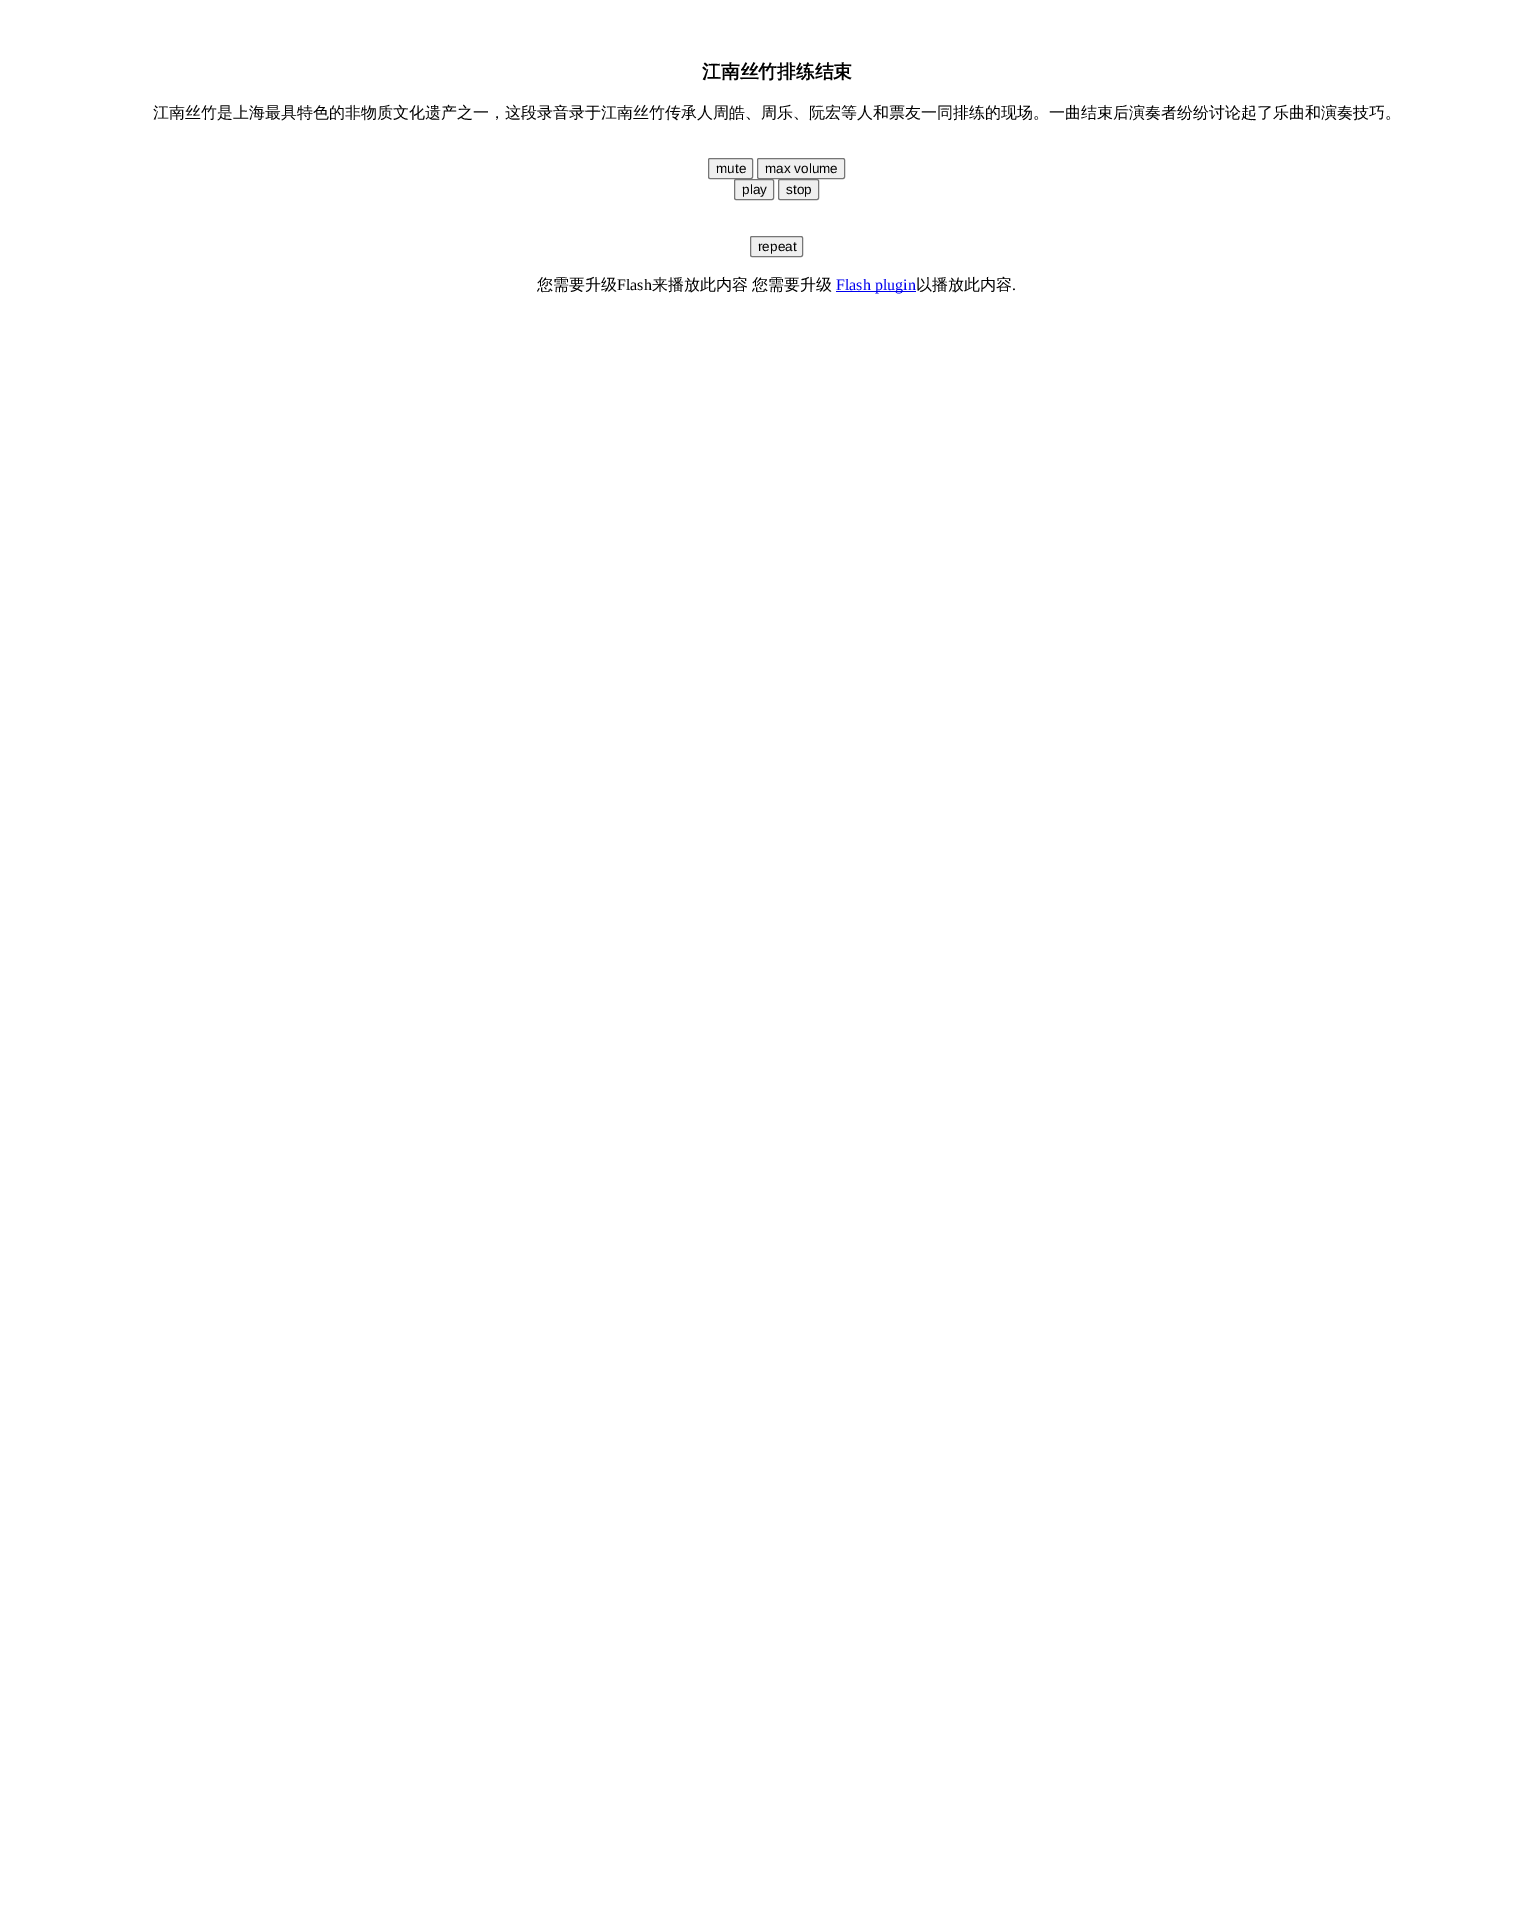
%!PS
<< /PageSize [1533 1914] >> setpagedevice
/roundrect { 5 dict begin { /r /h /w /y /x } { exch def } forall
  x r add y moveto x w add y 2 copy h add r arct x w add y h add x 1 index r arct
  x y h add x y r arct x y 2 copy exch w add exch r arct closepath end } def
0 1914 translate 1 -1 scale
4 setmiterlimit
1 setgray
0 0 1533 1914 rectfill
/WenQuanYiZenHei-Bold [18.75 0 0 -18.75 0 0] selectfont
0 setgray
702 78 moveto (江南丝竹排练结束) show
/WenQuanYiZenHei-Medium [16 0 0 -16 0 0] selectfont
153 118 moveto (江南丝竹是上海最具特色的非物质文化遗产之一，这段录音录于江南丝竹传承人周皓、周乐、阮宏等人和票友一同排练的现场。一曲结束后演奏者纷纷讨论起了乐曲和演奏技巧。) show
0.937 setgray
708.5 158.5 44 20 1.5 roundrect gsave fill grestore
0.463 setgray
stroke
/LiberationSans-Regular [13.5 0 0 -13.5 0 0] selectfont
0 setgray
716 173 moveto (mute) show
0.937 setgray
757.5 158.5 87 20 1.5 roundrect gsave fill grestore
0.463 setgray
stroke
0 setgray
765 173 moveto (max volume) show
0.937 setgray
734.5 179.5 39 20 1.5 roundrect gsave fill grestore
0.463 setgray
stroke
0 setgray
742 194 moveto (play) show
0.937 setgray
778.5 179.5 40 20 1.5 roundrect gsave fill grestore
0.463 setgray
stroke
0 setgray
786 194 moveto (stop) show
0.937 setgray
750.5 236.5 52 20 1.5 roundrect gsave fill grestore
0.463 setgray
stroke
0 setgray
758 251 moveto (repeat) show
/WenQuanYiZenHei-Medium [16 0 0 -16 0 0] selectfont
537 290 moveto (您需要升级) show
/LiberationSerif-Regular [16 0 0 -16 0 0] selectfont
617 290 moveto (Flash) show
/WenQuanYiZenHei-Medium [16 0 0 -16 0 0] selectfont
652 290 moveto (来播放此内容) show
752 290 moveto (您需要升级) show
0 0 0.933 setrgbcolor
836 291 80 1 rectfill
/LiberationSerif-Regular [16 0 0 -16 0 0] selectfont
836 290 moveto (Flash plugin) show
/WenQuanYiZenHei-Medium [16 0 0 -16 0 0] selectfont
0 setgray
916 290 moveto (以播放此内容) show
/LiberationSerif-Regular [16 0 0 -16 0 0] selectfont
1012 290 moveto (.) show
showpage
